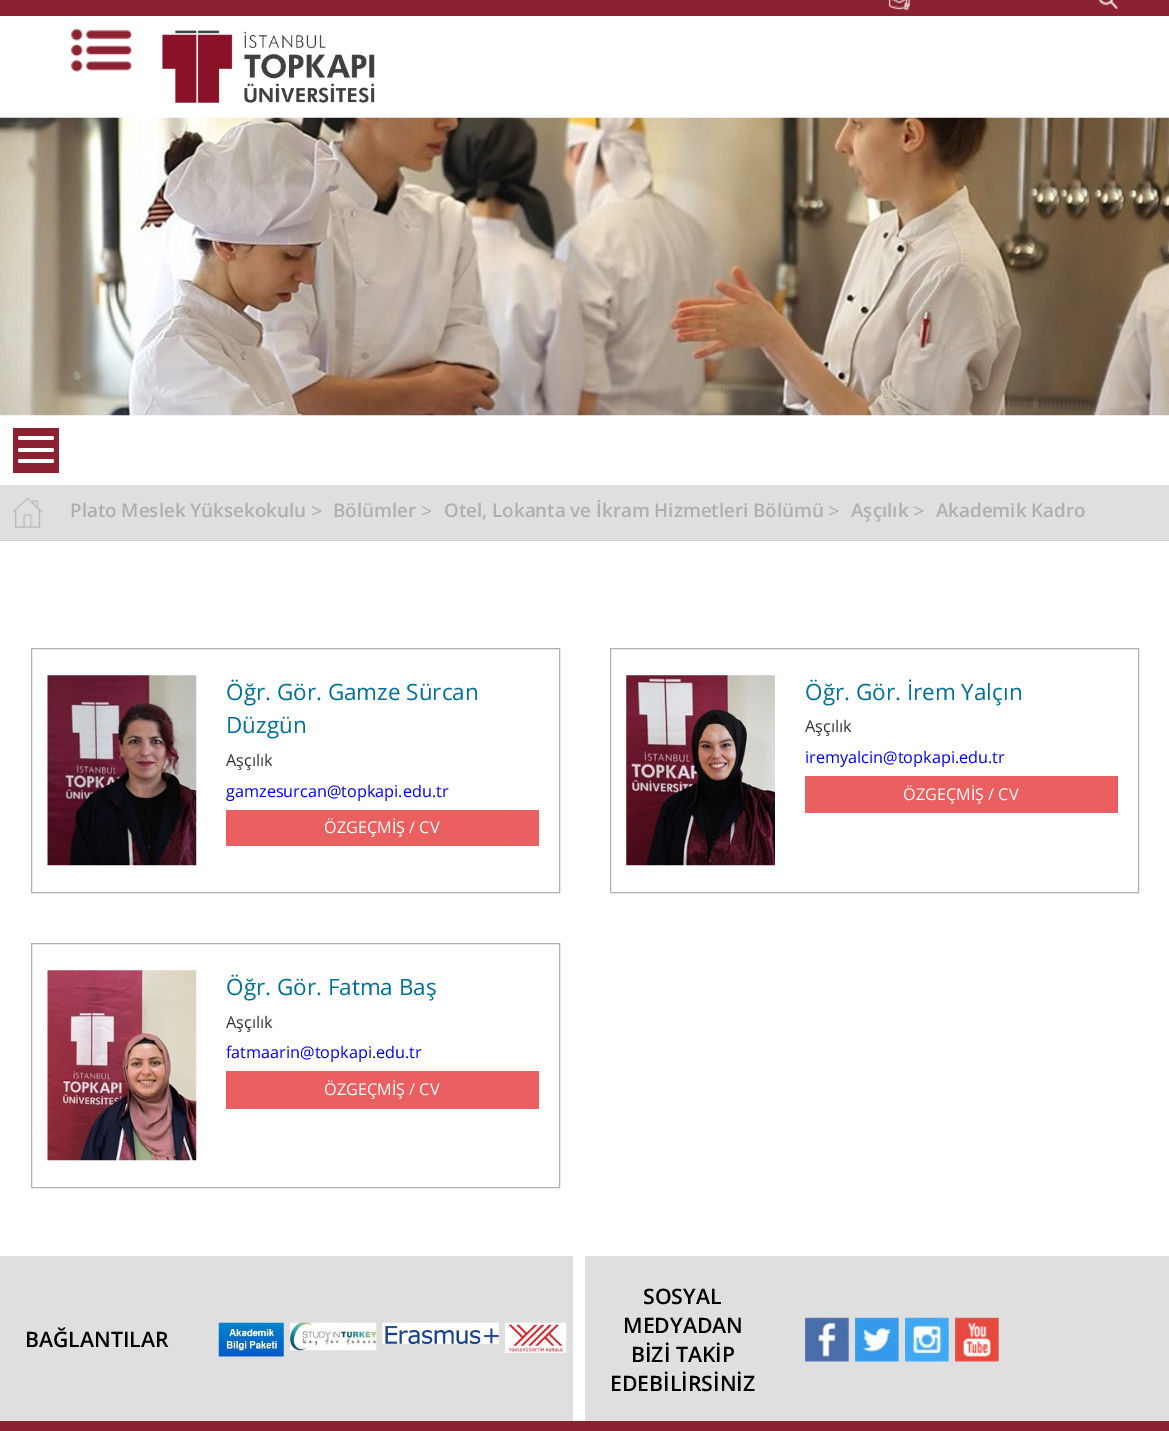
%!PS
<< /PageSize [1169 1431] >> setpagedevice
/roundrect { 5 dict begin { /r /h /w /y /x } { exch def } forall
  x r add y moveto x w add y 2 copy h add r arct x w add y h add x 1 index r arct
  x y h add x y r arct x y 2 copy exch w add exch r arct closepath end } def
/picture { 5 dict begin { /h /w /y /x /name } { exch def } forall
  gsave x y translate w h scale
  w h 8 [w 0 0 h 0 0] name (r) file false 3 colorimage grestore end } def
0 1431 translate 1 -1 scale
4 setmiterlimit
1 setgray
0 0 1169 1431 rectfill
0.549 0.129 0.192 setrgbcolor
0 0 1169 16 rectfill
(img1.rgb) 888 0 22 11 picture
(img2.rgb) 1098 0 20 9 picture
(img3.rgb) 71 29 61 43 picture
(img4.rgb) 162 30 213 73 picture
(img5.rgb) 0 117 1169 299 picture
13 428 46 45 rectfill
1 setgray
18 436 36 4 2 roundrect fill
18 448 36 4 2 roundrect fill
18 459 36 4 2 roundrect fill
0.875 setgray
0 485 1169 55 rectfill
0.804 setgray
0 540 1169 1 rectfill
(img6.rgb) 12 497 31 31 picture
/OpenSans-SemiBold [18.75 0 0 -18.75 0 0] selectfont
0.686 setgray
70 517 moveto (Plato Meslek Yüksekokulu) show
/OpenSans-Regular [20 0 0 -20 0 0] selectfont
311 518 moveto (>) show
/OpenSans-SemiBold [18.75 0 0 -18.75 0 0] selectfont
333 517 moveto (Bölümler) show
/OpenSans-Regular [20 0 0 -20 0 0] selectfont
421 518 moveto (>) show
0.875 setgray
431 510 1 2 rectfill
/OpenSans-SemiBold [18.75 0 0 -18.75 0 0] selectfont
0.686 setgray
444 517 moveto (Otel, Lokanta ve İkram Hizmetleri Bölümü) show
/OpenSans-Regular [20 0 0 -20 0 0] selectfont
828 518 moveto (>) show
/OpenSans-SemiBold [18.75 0 0 -18.75 0 0] selectfont
851 517 moveto (Aşçılık) show
/OpenSans-Regular [20 0 0 -20 0 0] selectfont
913 518 moveto (>) show
/OpenSans-SemiBold [18.75 0 0 -18.75 0 0] selectfont
936 517 moveto (Akademik Kadro) show
0.69 setgray
31.5 648.5 528 244 rectstroke
(img7.rgb) 47 675 150 191 picture
/OpenSans-Regular [22.5 0 0 -22.5 0 0] selectfont
0 0.435 0.58 setrgbcolor
226 700 moveto (Öğr. Gör. Gamze Sürcan) show
226 733 moveto (Düzgün) show
/OpenSans-Regular [16.25 0 0 -16.25 0 0] selectfont
0.18 0.196 0.204 setrgbcolor
226 766 moveto (Aşçılık) show
0 0 0.933 setrgbcolor
226 797 moveto (gamzesurcan@topkapi.edu.tr) show
0.918 0.376 0.376 setrgbcolor
226 810 313 36 rectfill
1 setgray
324 833 moveto (ÖZGEÇMİŞ / CV) show
0.69 setgray
610.5 648.5 528 244 rectstroke
(img8.rgb) 626 675 149 191 picture
/OpenSans-Regular [22.5 0 0 -22.5 0 0] selectfont
0 0.435 0.58 setrgbcolor
805 700 moveto (Öğr. Gör. İrem Yalçın) show
/OpenSans-Regular [16.25 0 0 -16.25 0 0] selectfont
0.18 0.196 0.204 setrgbcolor
805 732 moveto (Aşçılık) show
0 0 0.933 setrgbcolor
805 763 moveto (iremyalcin@topkapi.edu.tr) show
0.918 0.376 0.376 setrgbcolor
805 776 313 37 rectfill
1 setgray
903 800 moveto (ÖZGEÇMİŞ / CV) show
0.69 setgray
31.5 943.5 528 244 rectstroke
(img9.rgb) 47 970 150 191 picture
/OpenSans-Regular [22.5 0 0 -22.5 0 0] selectfont
0 0.435 0.58 setrgbcolor
226 995 moveto (Öğr. Gör. Fatma Baş) show
/OpenSans-Regular [16.25 0 0 -16.25 0 0] selectfont
0.18 0.196 0.204 setrgbcolor
226 1028 moveto (Aşçılık) show
0 0 0.933 setrgbcolor
226 1058 moveto (fatmaarin@topkapi.edu.tr) show
0.918 0.376 0.376 setrgbcolor
226 1071 313 38 rectfill
1 setgray
324 1095 moveto (ÖZGEÇMİŞ / CV) show
0.875 setgray
0 1256 573 165 rectfill
/OpenSans-SemiBold [21.25 0 0 -21.25 0 0] selectfont
0 setgray
25 1347 moveto (BAĞLANTILAR) show
(img10.rgb) 218 1322 66 35 picture
(img11.rgb) 290 1322 87 29 picture
(img12.rgb) 382 1322 117 22 picture
(img13.rgb) 505 1322 62 31 picture
0.875 setgray
585 1256 584 165 rectfill
0 setgray
643 1304 moveto (SOSYAL) show
623 1333 moveto (MEDYADAN) show
631 1362 moveto (BİZİ TAKİP) show
610 1391 moveto (EDEBİLİRSİNİZ) show
(img14.rgb) 805 1317 44 45 picture
(img15.rgb) 855 1317 44 45 picture
(img16.rgb) 905 1317 44 45 picture
(img17.rgb) 955 1317 44 45 picture
0.549 0.129 0.192 setrgbcolor
0 1421 1169 10 rectfill
showpage
